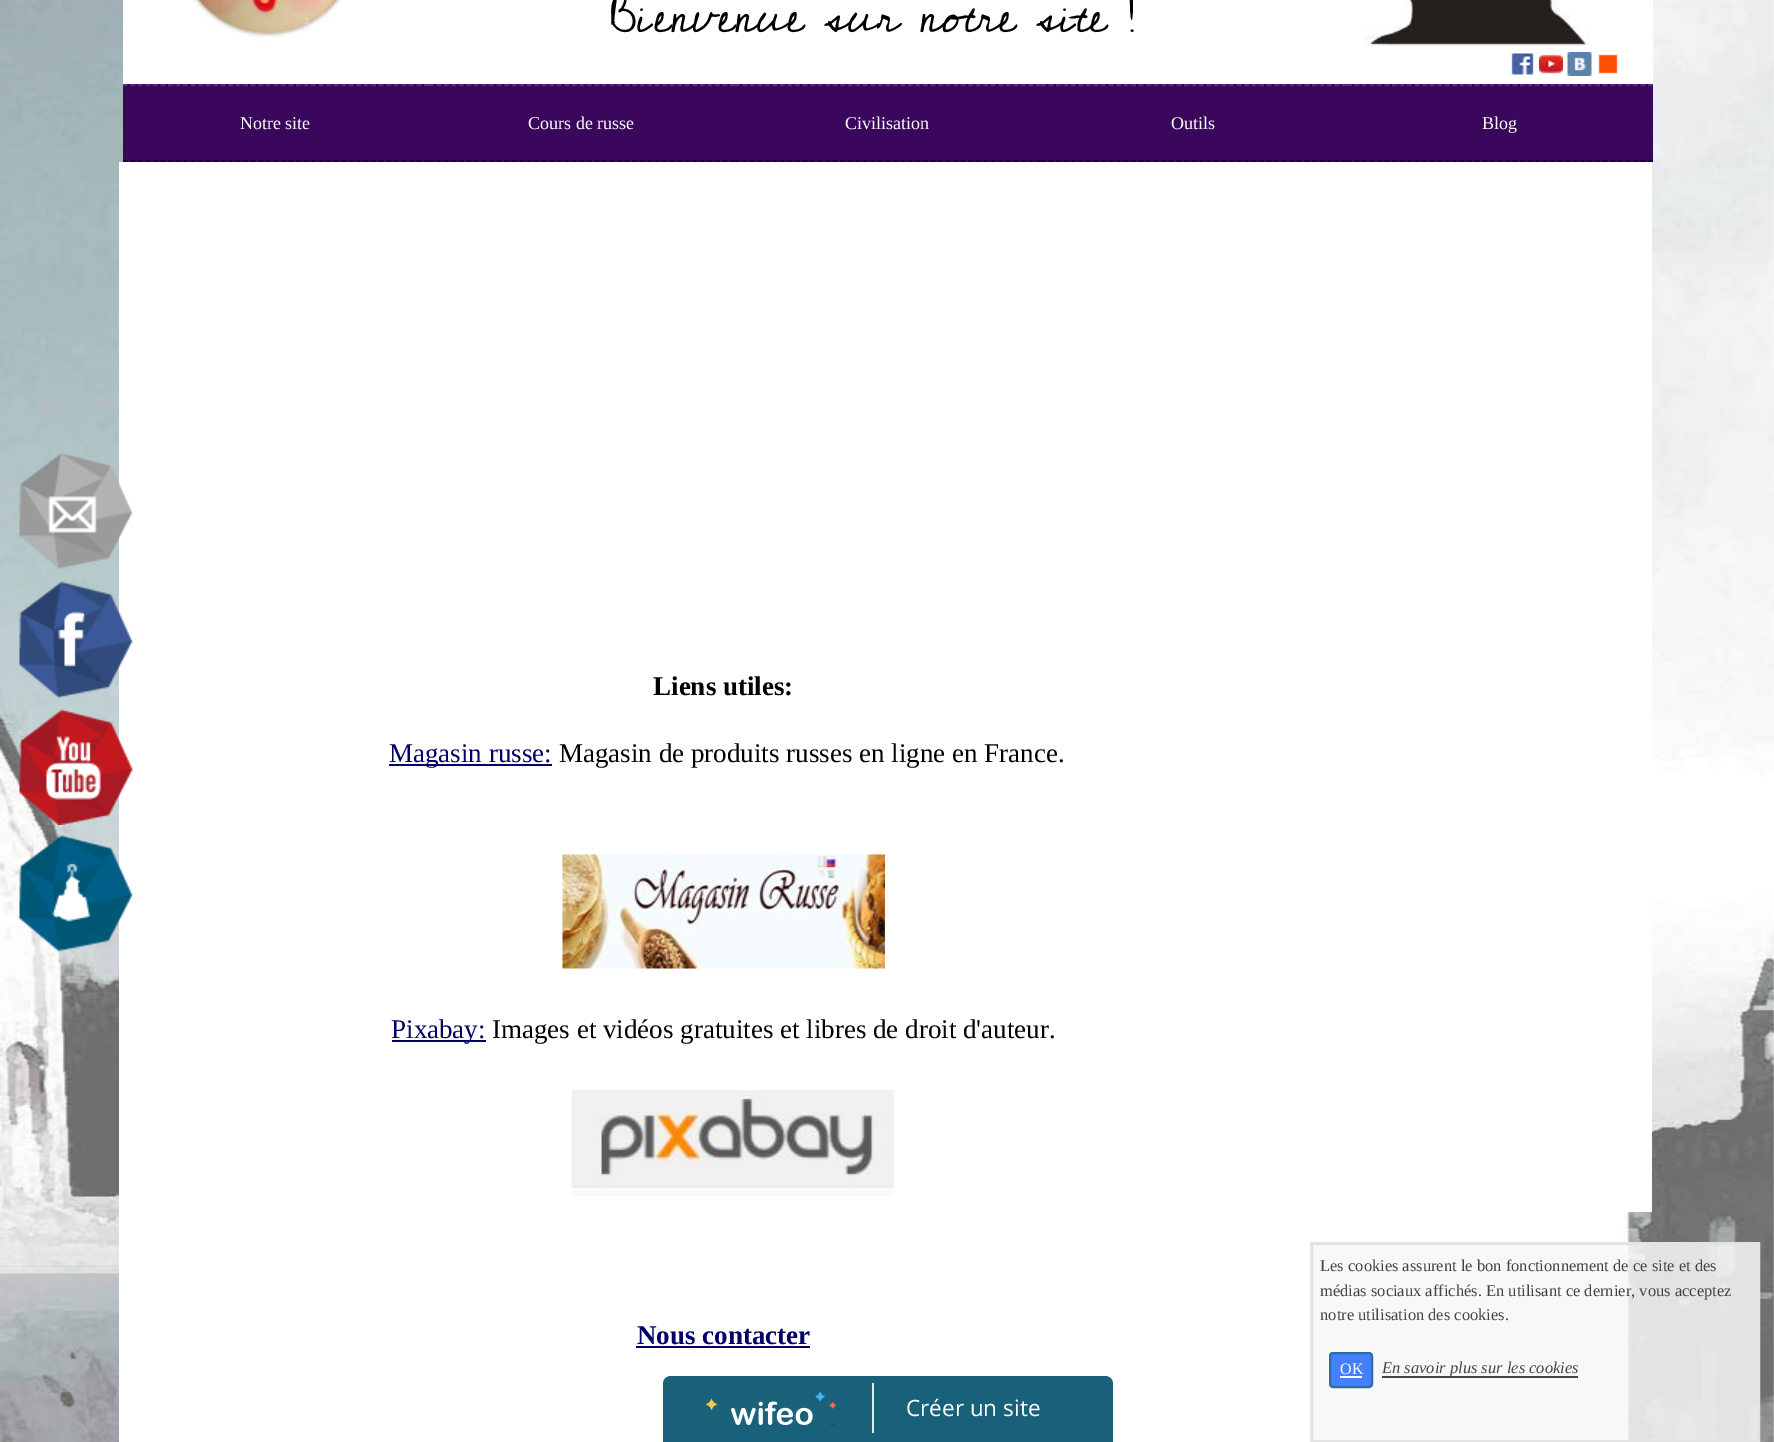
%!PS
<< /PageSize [1774 1442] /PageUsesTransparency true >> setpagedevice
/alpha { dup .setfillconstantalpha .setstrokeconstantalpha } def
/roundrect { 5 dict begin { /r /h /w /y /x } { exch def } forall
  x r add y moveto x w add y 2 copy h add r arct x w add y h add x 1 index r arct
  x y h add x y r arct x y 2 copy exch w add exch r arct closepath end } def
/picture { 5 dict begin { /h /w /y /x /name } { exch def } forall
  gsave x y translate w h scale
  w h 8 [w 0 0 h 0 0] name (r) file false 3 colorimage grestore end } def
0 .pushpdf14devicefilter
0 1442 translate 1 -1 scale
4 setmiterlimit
1 setgray
0 0 1774 1442 rectfill
(img1.rgb) 0 0 1774 1442 picture
123 0 1530 84 rectfill
(img2.rgb) 189 0 152 46 picture
/CedarvilleCursive-Regular [48 0 0 -48 0 0] selectfont
0 setgray
610 32 moveto (Bienvenue sur notre site !) show
(img3.rgb) 1365 0 225 46 picture
(img4.rgb) 1511 53 23 22 picture
(img5.rgb) 1539 54 24 20 picture
(img6.rgb) 1567 52 25 24 picture
(img7.rgb) 1598 54 20 20 picture
0.227 0.027 0.361 setrgbcolor
123 84 1530 78 rectfill
0.384 0.184 0.518 setrgbcolor
1.5 setlinewidth
[4.5 3.03] 0 setdash
newpath 123 85 moveto 429 85 lineto stroke
0.071 0 0.204 setrgbcolor
newpath 123 161 moveto 429 161 lineto stroke
/LiberationSerif-Regular [18 0 0 -18 0 0] selectfont
1 setgray
240 129 moveto (Notre site) show
0.384 0.184 0.518 setrgbcolor
newpath 429 85 moveto 735 85 lineto stroke
0.071 0 0.204 setrgbcolor
newpath 429 161 moveto 735 161 lineto stroke
1 setgray
528 129 moveto (Cours de russe) show
0.384 0.184 0.518 setrgbcolor
newpath 735 85 moveto 1041 85 lineto stroke
0.071 0 0.204 setrgbcolor
newpath 735 161 moveto 1041 161 lineto stroke
1 setgray
845 129 moveto (Civilisation) show
0.384 0.184 0.518 setrgbcolor
newpath 1041 85 moveto 1347 85 lineto stroke
0.071 0 0.204 setrgbcolor
newpath 1041 161 moveto 1347 161 lineto stroke
1 setgray
1171 129 moveto (Outils) show
0.384 0.184 0.518 setrgbcolor
newpath 1347 85 moveto 1653 85 lineto stroke
0.071 0 0.204 setrgbcolor
newpath 1347 161 moveto 1653 161 lineto stroke
1 setgray
1482 129 moveto (Blog) show
119 162 39 1280 rectfill
(img8.rgb) 18 453 115 116 picture
(img9.rgb) 18 581 115 117 picture
(img10.rgb) 19 709 115 116 picture
(img11.rgb) 18 835 115 117 picture
/LiberationSerif-Bold [27 0 0 -27 0 0] selectfont
0 setgray
653 695 moveto (Liens utiles:) show
0 0 0.4 setrgbcolor
389 764 163 2 rectfill
/LiberationSerif-Regular [27 0 0 -27 0 0] selectfont
389 762 moveto (Magasin russe:) show
0 setgray
559 762 moveto (Magasin de produits russes en ligne en France.) show
(img12.rgb) 562 854 323 115 picture
0 0 0.4 setrgbcolor
392 1040 94 2 rectfill
391 1038 moveto (Pixabay:) show
0 setgray
492 1038 moveto (Images et vidéos gratuites et libres de droit d'auteur.) show
(img13.rgb) 571 1090 323 106 picture
/LiberationSerif-Bold [27 0 0 -27 0 0] selectfont
0 0 0.4 setrgbcolor
637 1344 moveto (Nous contacter) show
636 1346 174 2 rectfill
1 setgray
1623 162 29 1050 rectfill
0.85 alpha
0.969 setgray
newpath 1311.5 1243.5 moveto 1758.5 1243.5 lineto 1758.5 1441.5 lineto 1311.5 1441.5 lineto closepath fill
1 alpha
0.89 setgray
3 setlinewidth
[] 0 setdash
newpath 1311.5 1243.5 moveto 1758.5 1243.5 lineto 1758.5 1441.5 lineto 1311.5 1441.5 lineto closepath stroke
/LiberationSerif-Regular [16.5 0 0 -16.5 0 0] selectfont
0.267 setgray
1320 1271 moveto (Les cookies assurent le bon fonctionnement de ce site et des) show
1320 1296 moveto (médias sociaux affichés. En utilisant ce dernier, vous acceptez) show
1320 1320 moveto (notre utilisation des cookies.) show
0.267 0.498 1 setrgbcolor
1330 1353 42 34 3 roundrect gsave fill grestore
0.18 0.427 0.643 setrgbcolor
2 setlinewidth
stroke
/LiberationSerif-Regular [16 0 0 -16 0 0] selectfont
1 setgray
1340 1374 moveto (OK) show
1340 1376 22 2 rectfill
0.267 setgray
1382 1376 196 2 rectfill
/LiberationSerif-Italic [16.5 0 0 -16.5 0 0] selectfont
1382 1373 moveto (En savoir plus sur les cookies) show
0.9 alpha
0 0.314 0.42 setrgbcolor
newpath 671 1376 moveto 1105 1376 lineto 1109.5 1376 1113 1379.5 1113 1384 curveto 1113 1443 lineto 663 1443 lineto 663 1384 lineto 663 1379.5 666.5 1376 671 1376 curveto closepath fill
1 alpha
0.906 setgray
872 1383 2 50 rectfill
(img14.rgb) 705 1392 132 33 picture
/OpenSans-Regular [22.5 0 0 -22.5 0 0] selectfont
1 setgray
906 1416 moveto (Créer un site) show
.poppdf14devicefilter showpage
